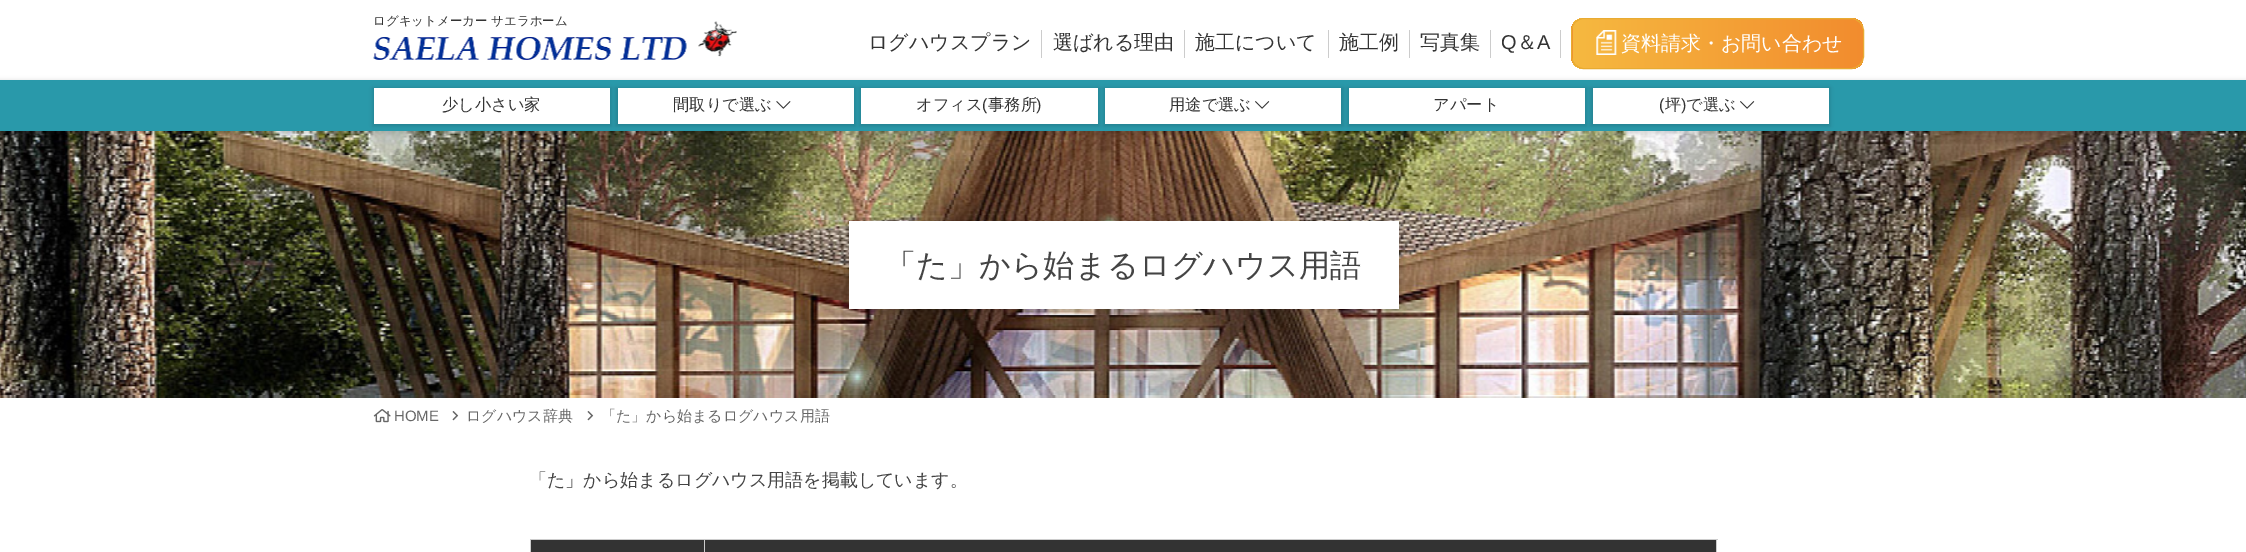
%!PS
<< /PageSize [2246 552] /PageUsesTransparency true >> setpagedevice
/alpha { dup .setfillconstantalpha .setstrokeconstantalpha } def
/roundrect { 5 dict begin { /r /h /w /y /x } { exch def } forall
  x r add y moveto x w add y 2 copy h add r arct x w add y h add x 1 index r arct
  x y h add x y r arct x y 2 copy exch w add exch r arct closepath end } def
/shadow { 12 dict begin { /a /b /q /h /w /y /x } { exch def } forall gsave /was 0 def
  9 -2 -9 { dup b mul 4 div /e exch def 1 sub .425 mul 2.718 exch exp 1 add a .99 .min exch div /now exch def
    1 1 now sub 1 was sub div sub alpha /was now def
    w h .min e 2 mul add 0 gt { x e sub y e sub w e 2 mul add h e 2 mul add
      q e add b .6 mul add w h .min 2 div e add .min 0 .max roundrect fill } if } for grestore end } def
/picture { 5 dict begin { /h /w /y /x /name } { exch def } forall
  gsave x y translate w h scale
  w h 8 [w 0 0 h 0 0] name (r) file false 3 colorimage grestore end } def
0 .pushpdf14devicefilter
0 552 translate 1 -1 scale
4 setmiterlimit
1 setgray
0 0 2246 552 rectfill
/WenQuanYiZenHei-Medium [12.5 0 0 -12.5 0 0] selectfont
0.2 setgray
373 25 moveto (ログキットメーカー サエラホーム) show
(img1.rgb) 373 36 314 24 picture
(img2.rgb) 698 21 39 36 picture
0.8 setgray
1041 30 1 28 rectfill
/WenQuanYiZenHei-Medium [20 0 0 -20 0 0] selectfont
0.2 setgray
868 49 moveto (ログハウスプラン) show
0.8 setgray
1184 30 1 28 rectfill
0.2 setgray
1053 49 moveto (選ばれる理由) show
0.8 setgray
1328 30 1 28 rectfill
0.2 setgray
1195 49 moveto (施工について) show
0.8 setgray
1409 30 1 28 rectfill
0.2 setgray
1339 49 moveto (施工例) show
0.8 setgray
1490 30 1 28 rectfill
0.2 setgray
1420 49 moveto (写真集) show
0.8 setgray
1560 30 1 28 rectfill
/LiberationSans-Regular [20 0 0 -20 0 0] selectfont
0.2 setgray
1501 49 moveto (Q) show
/WenQuanYiZenHei-Medium [20 0 0 -20 0 0] selectfont
1517 49 moveto (＆) show
/LiberationSans-Regular [20 0 0 -20 0 0] selectfont
1537 49 moveto (A) show
gsave
1571 18 293 51 13 roundrect clip newpath
gsave newpath 1571 18 moveto 1573 18 lineto 1573 69 lineto 1571 69 lineto closepath clip newpath
<< /ShadingType 2 /ColorSpace /DeviceRGB /Coords [1283 43 1573 43] /Extend [true true] /Function << /FunctionType 2 /Domain [0 1] /C0 [0.965 0.725 0.251] /C1 [0.949 0.549 0.18] /N 1 >> >> shfill grestore
gsave newpath 1573 18 moveto 1863 18 lineto 1863 69 lineto 1573 69 lineto closepath clip newpath
<< /ShadingType 2 /ColorSpace /DeviceRGB /Coords [1573 43 1863 43] /Extend [true true] /Function << /FunctionType 2 /Domain [0 1] /C0 [0.965 0.725 0.251] /C1 [0.949 0.549 0.18] /N 1 >> >> shfill grestore
grestore
0.91 0.671 0.196 setrgbcolor
1571.5 18.5 292 50 12.5 roundrect stroke
(img3.rgb) 1596 30 21 25 picture
/WenQuanYiZenHei-Medium [20 0 0 -20 0 0] selectfont
1 setgray
1621 50 moveto (資料請求・お問い合わせ) show
(img6.rgb) 0 131 2246 267 picture
0 setgray
-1 80 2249 54 0 2 0.12 shadow
0.161 0.6 0.667 setrgbcolor
0 80 2246 51 rectfill
0 setgray
373 88 238 38 0 2 0.15 shadow
1 setgray
374 88 236 36 rectfill
/WenQuanYiZenHei-Medium [16.25 0 0 -16.25 0 0] selectfont
0.2 setgray
442 110 moveto (少し小さい家) show
0 setgray
616 88 239 38 0 2 0.15 shadow
1 setgray
618 88 236 36 rectfill
0.2 setgray
673 110 moveto (間取りで選ぶ) show
(img4.rgb) 776 101 15 8 picture
0 setgray
860 88 239 38 0 2 0.15 shadow
1 setgray
861 88 237 36 rectfill
0.2 setgray
916 110 moveto (オフィス) show
/LiberationSans-Regular [16.25 0 0 -16.25 0 0] selectfont
982 110 moveto (\() show
/WenQuanYiZenHei-Medium [16.25 0 0 -16.25 0 0] selectfont
988 110 moveto (事務所) show
/LiberationSans-Regular [16.25 0 0 -16.25 0 0] selectfont
1036 110 moveto (\)) show
0 setgray
1104 88 239 38 0 2 0.15 shadow
1 setgray
1105 88 236 36 rectfill
/WenQuanYiZenHei-Medium [16.25 0 0 -16.25 0 0] selectfont
0.2 setgray
1169 110 moveto (用途で選ぶ) show
(img5.rgb) 1255 101 15 8 picture
0 setgray
1348 88 238 38 0 2 0.15 shadow
1 setgray
1349 88 236 36 rectfill
0.2 setgray
1433 110 moveto (アパート) show
0 setgray
1591 88 239 38 0 2 0.15 shadow
1 setgray
1593 88 236 36 rectfill
/LiberationSans-Regular [16.25 0 0 -16.25 0 0] selectfont
0.2 setgray
1659 110 moveto (\() show
/WenQuanYiZenHei-Medium [16.25 0 0 -16.25 0 0] selectfont
1665 110 moveto (坪) show
/LiberationSans-Regular [16.25 0 0 -16.25 0 0] selectfont
1681 110 moveto (\)) show
/WenQuanYiZenHei-Medium [16.25 0 0 -16.25 0 0] selectfont
1686 110 moveto (で選ぶ) show
(img5.rgb) 1740 101 15 8 picture
0 setgray
850 223 548 85 0 5 0.25 shadow
1 setgray
849 221 550 88 rectfill
/WenQuanYiZenHei-Medium [31.25 0 0 -31.25 0 0] selectfont
0.267 setgray
885 276 moveto (「た」から始まるログハウス用語) show
(img7.rgb) 373 409 18 14 picture
/LiberationSans-Regular [15 0 0 -15 0 0] selectfont
0.4 setgray
394 421 moveto (HOME) show
(img8.rgb) 452 411 7 10 picture
/WenQuanYiZenHei-Medium [15 0 0 -15 0 0] selectfont
466 421 moveto (ログハウス辞典) show
(img8.rgb) 587 411 7 10 picture
601 421 moveto (「た」から始まるログハウス用語) show
/WenQuanYiZenHei-Medium [18 0 0 -18 0 0] selectfont
0.267 setgray
529 486 moveto (「た」から始まるログハウス用語を掲載しています。) show
0.2 setgray
531 540 173 12 rectfill
0.8 setgray
704 539 1014 1 rectfill
704 539 1 13 rectfill
530 539 175 1 rectfill
530 539 1 13 rectfill
0.2 setgray
705 540 1011 12 rectfill
0.8 setgray
1716 539 1 13 rectfill
.poppdf14devicefilter showpage
